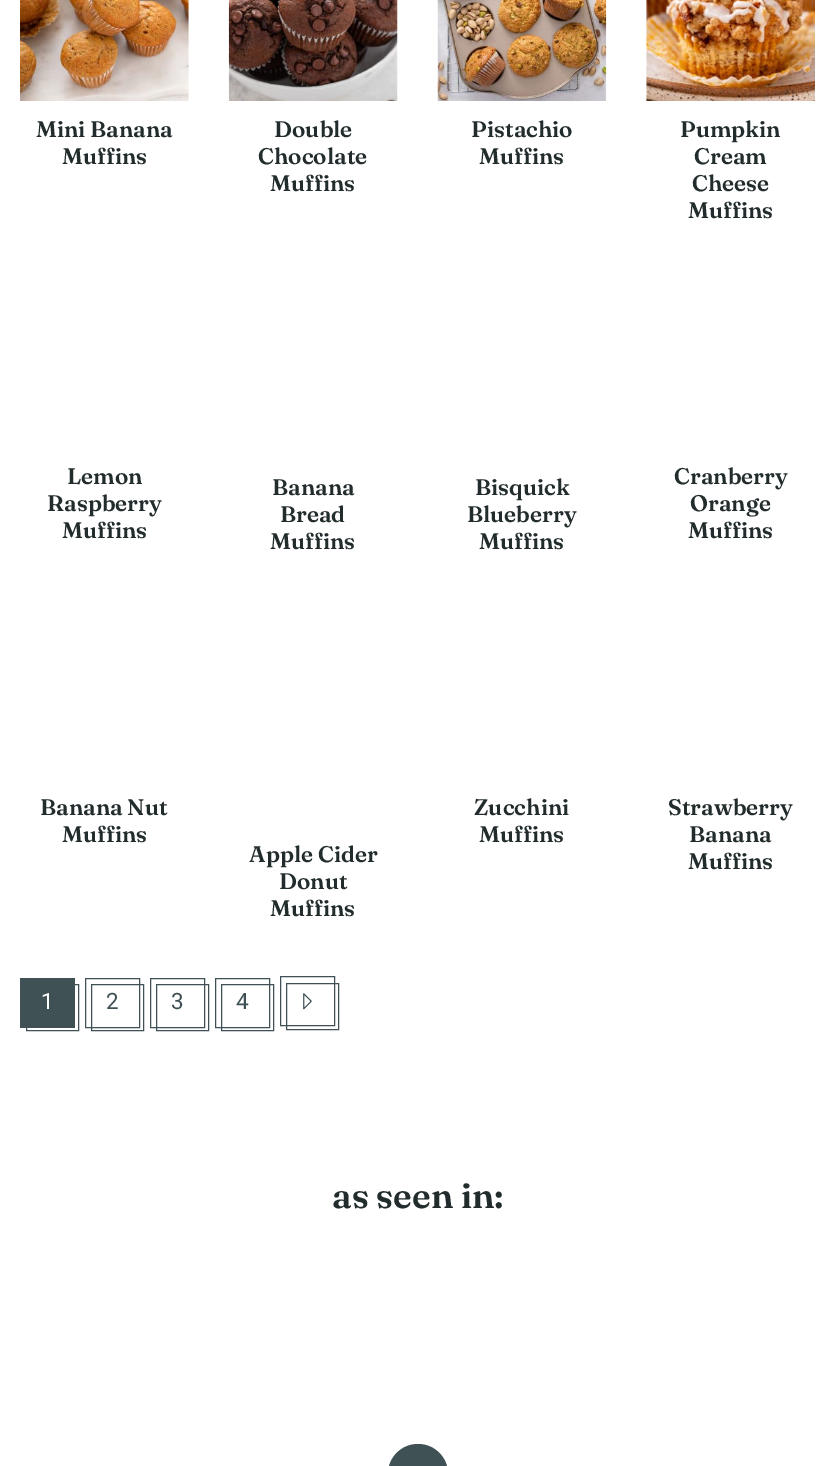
%!PS
<< /PageSize [834 1466] >> setpagedevice
/roundrect { 5 dict begin { /r /h /w /y /x } { exch def } forall
  x r add y moveto x w add y 2 copy h add r arct x w add y h add x 1 index r arct
  x y h add x y r arct x y 2 copy exch w add exch r arct closepath end } def
/picture { 5 dict begin { /h /w /y /x /name } { exch def } forall
  gsave x y translate w h scale
  w h 8 [w 0 0 h 0 0] name (r) file false 3 colorimage grestore end } def
0 1466 translate 1 -1 scale
4 setmiterlimit
1 setgray
0 0 834 1466 rectfill
(img1.rgb) 20 0 169 101 picture
/Fraunces-SemiBold [22.5 0 0 -22.5 0 0] selectfont
0.133 0.173 0.176 setrgbcolor
36 137 moveto (Mini Banana) show
62 164 moveto (Muffins) show
(img2.rgb) 228 0 170 101 picture
274 137 moveto (Double) show
258 164 moveto (Chocolate) show
270 191 moveto (Muffins) show
(img3.rgb) 437 0 170 101 picture
471 137 moveto (Pistachio) show
479 164 moveto (Muffins) show
(img4.rgb) 646 0 169 101 picture
680 137 moveto (Pumpkin) show
694 164 moveto (Cream) show
692 191 moveto (Cheese) show
688 218 moveto (Muffins) show
67 484 moveto (Lemon) show
47 511 moveto (Raspberry) show
62 538 moveto (Muffins) show
272 495 moveto (Banana) show
280 522 moveto (Bread) show
270 549 moveto (Muffins) show
475 495 moveto (Bisquick) show
467 522 moveto (Blueberry) show
479 549 moveto (Muffins) show
674 484 moveto (Cranberry) show
690 511 moveto (Orange) show
688 538 moveto (Muffins) show
40 815 moveto (Banana Nut) show
62 842 moveto (Muffins) show
474 815 moveto (Zucchini) show
479 842 moveto (Muffins) show
668 815 moveto (Strawberry) show
689 842 moveto (Banana) show
688 869 moveto (Muffins) show
249 862 moveto (Apple Cider) show
279 889 moveto (Donut) show
270 916 moveto (Muffins) show
0.251 0.318 0.337 setrgbcolor
20 978 55 50 rectfill
26.5 984.5 52 46 rectstroke
/Roboto-Regular [22.5 0 0 -22.5 0 0] selectfont
1 setgray
41 1009 moveto (1) show
0.251 0.318 0.337 setrgbcolor
85.5 978.5 54 49 rectstroke
91.5 984.5 52 46 rectstroke
106 1009 moveto (2) show
150.5 978.5 54 49 rectstroke
156.5 984.5 52 46 rectstroke
171 1009 moveto (3) show
215.5 978.5 54 49 rectstroke
221.5 984.5 52 46 rectstroke
236 1009 moveto (4) show
280.5 976.5 54 49 rectstroke
(img5.rgb) 303 993 9 17 picture
286.5 983.5 52 46 rectstroke
/Fraunces-SemiBold [35 0 0 -35 0 0] selectfont
0.133 0.173 0.176 setrgbcolor
332 1208 moveto (as seen in:) show
0.251 0.318 0.337 setrgbcolor
388 1444 60 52 30 roundrect fill
showpage
